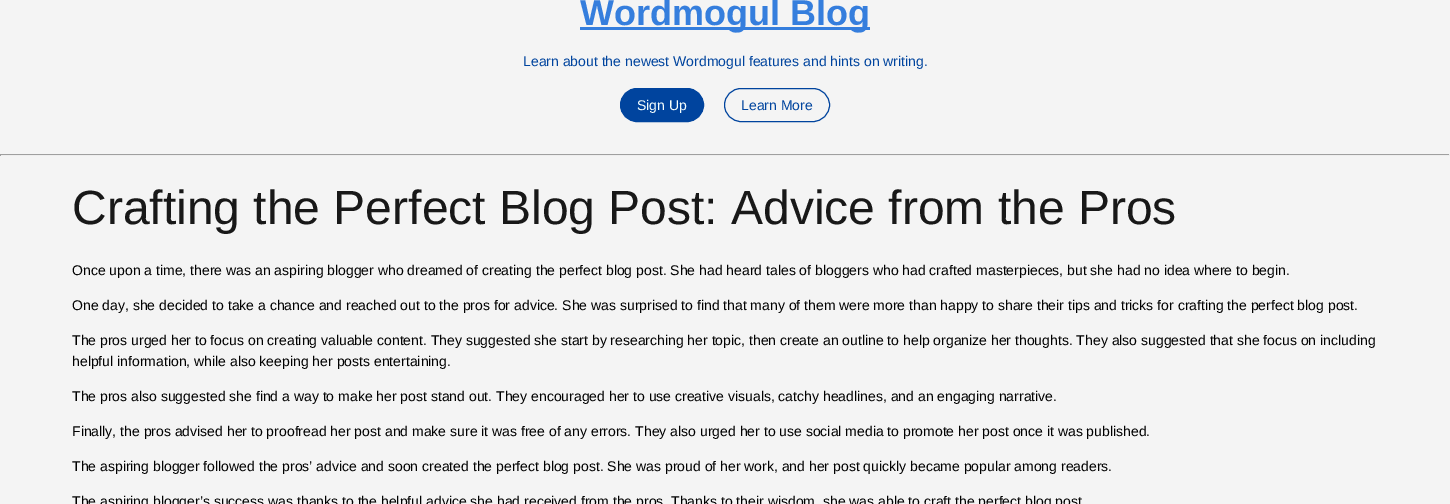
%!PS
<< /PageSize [1450 504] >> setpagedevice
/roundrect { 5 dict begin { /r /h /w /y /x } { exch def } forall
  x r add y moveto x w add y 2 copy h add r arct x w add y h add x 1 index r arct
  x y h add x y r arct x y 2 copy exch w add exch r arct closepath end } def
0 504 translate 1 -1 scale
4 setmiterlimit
0.957 setgray
0 0 1450 504 rectfill
0.208 0.494 0.867 setrgbcolor
580 27 290 3 rectfill
/LiberationSans-Bold [36 0 0 -36 0 0] selectfont
580 25 moveto (Wordmogul Blog) show
/LiberationSans-Regular [14 0 0 -14 0 0] selectfont
0 0.267 0.62 setrgbcolor
523 66 moveto (Learn about the newest Wordmogul features and hints on writing.) show
620.5 88.5 83 33 16.5 roundrect gsave fill grestore
stroke
0.965 1 0.996 setrgbcolor
637 110 moveto (Sign Up) show
0 0.267 0.62 setrgbcolor
724.5 88.5 105 33 16.5 roundrect stroke
741 110 moveto (Learn More) show
0.624 setgray
0 154 1450 1 rectfill
0.933 setgray
1449 154 1 2 rectfill
0 155 1450 1 rectfill
0.624 setgray
0 154 1 2 rectfill
/LiberationSans-Regular [48 0 0 -48 0 0] selectfont
0.094 setgray
72 224 moveto (Crafting the Perfect Blog Post: Advice from the Pros) show
/LiberationSans-Regular [14 0 0 -14 0 0] selectfont
0 setgray
72 275 moveto (Once upon a time, there was an aspiring blogger who dreamed of creating the perfect blog post. She had heard tales of bloggers who had crafted masterpieces, but she had no idea where to begin.) show
72 310 moveto (One day, she decided to take a chance and reached out to the pros for advice. She was surprised to find that many of them were more than happy to share their tips and tricks for crafting the perfect blog post.) show
72 345 moveto (The pros urged her to focus on creating valuable content. They suggested she start by researching her topic, then create an outline to help organize her thoughts. They also suggested that she focus on including) show
72 366 moveto (helpful information, while also keeping her posts entertaining.) show
72 401 moveto (The pros also suggested she find a way to make her post stand out. They encouraged her to use creative visuals, catchy headlines, and an engaging narrative.) show
72 436 moveto (Finally, the pros advised her to proofread her post and make sure it was free of any errors. They also urged her to use social media to promote her post once it was published.) show
72 471 moveto (The aspiring blogger followed the pros’ advice and soon created the perfect blog post. She was proud of her work, and her post quickly became popular among readers.) show
72 506 moveto (The aspiring blogger’s success was thanks to the helpful advice she had received from the pros. Thanks to their wisdom, she was able to craft the perfect blog post) show
showpage
